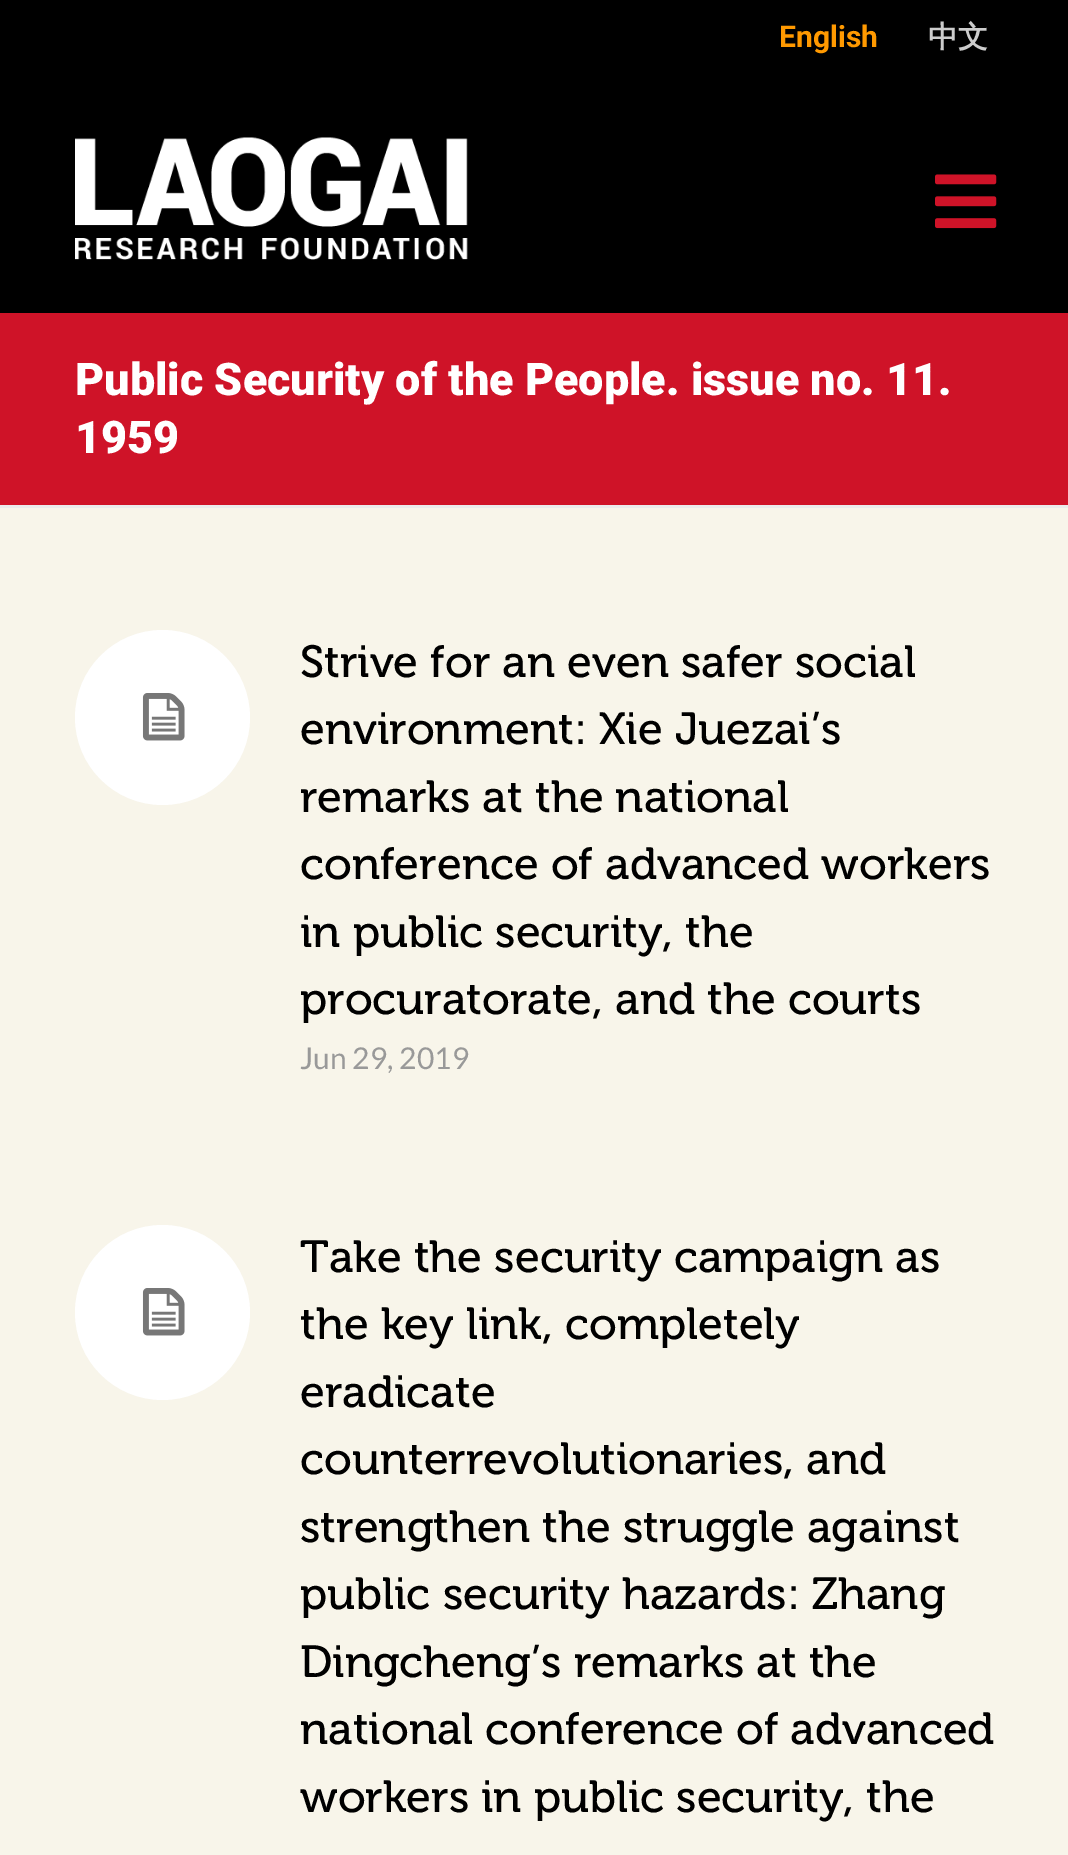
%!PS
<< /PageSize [1068 1855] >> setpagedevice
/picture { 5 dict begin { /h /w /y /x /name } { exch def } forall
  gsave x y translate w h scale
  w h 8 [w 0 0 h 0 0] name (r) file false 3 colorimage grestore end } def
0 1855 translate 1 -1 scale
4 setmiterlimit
0.973 0.961 0.918 setrgbcolor
0 0 1068 1855 rectfill
0 setgray
0 0 1068 313 rectfill
(img1.rgb) 75 137 393 123 picture
(img2.rgb) 935 174 62 55 picture
/Roboto-Bold [30 0 0 -30 0 0] selectfont
1 0.6 0 setrgbcolor
779 47 moveto (English) show
/WenQuanYiZenHei-Bold [30 0 0 -30 0 0] selectfont
0.8 setgray
928 47 moveto (中文) show
0.922 setgray
0 505 1068 3 rectfill
0.812 0.075 0.157 setrgbcolor
0 313 1068 192 rectfill
/Roboto-Black [45 0 0 -45 0 0] selectfont
1 setgray
75 395 moveto (Public Security of the People. issue no. 11.) show
75 453 moveto (1959) show
newpath 162.5 717.5 87.5 0 360 arc closepath fill
(img3.rgb) 142 693 43 48 picture
/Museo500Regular-Regular [45 0 0 -45 0 0] selectfont
0 setgray
300 677 moveto (Strive for an even safer social) show
300 744 moveto (environment: Xie Juezai’s) show
300 812 moveto (remarks at the national) show
300 879 moveto (conference of advanced workers) show
300 947 moveto (in public security, the) show
300 1014 moveto (procuratorate, and the courts) show
/Lato-Regular [30 0 0 -30 0 0] selectfont
0.6 setgray
300 1069 moveto (Jun 29, 2019) show
1 setgray
newpath 162.5 1312.5 87.5 0 360 arc closepath fill
(img3.rgb) 142 1288 43 48 picture
/Museo500Regular-Regular [45 0 0 -45 0 0] selectfont
0 setgray
300 1272 moveto (Take the security campaign as) show
300 1339 moveto (the key link, completely) show
300 1407 moveto (eradicate) show
300 1474 moveto (counterrevolutionaries, and) show
300 1542 moveto (strengthen the struggle against) show
300 1609 moveto (public security hazards: Zhang) show
300 1677 moveto (Dingcheng’s remarks at the) show
300 1744 moveto (national conference of advanced) show
300 1812 moveto (workers in public security, the) show
showpage
